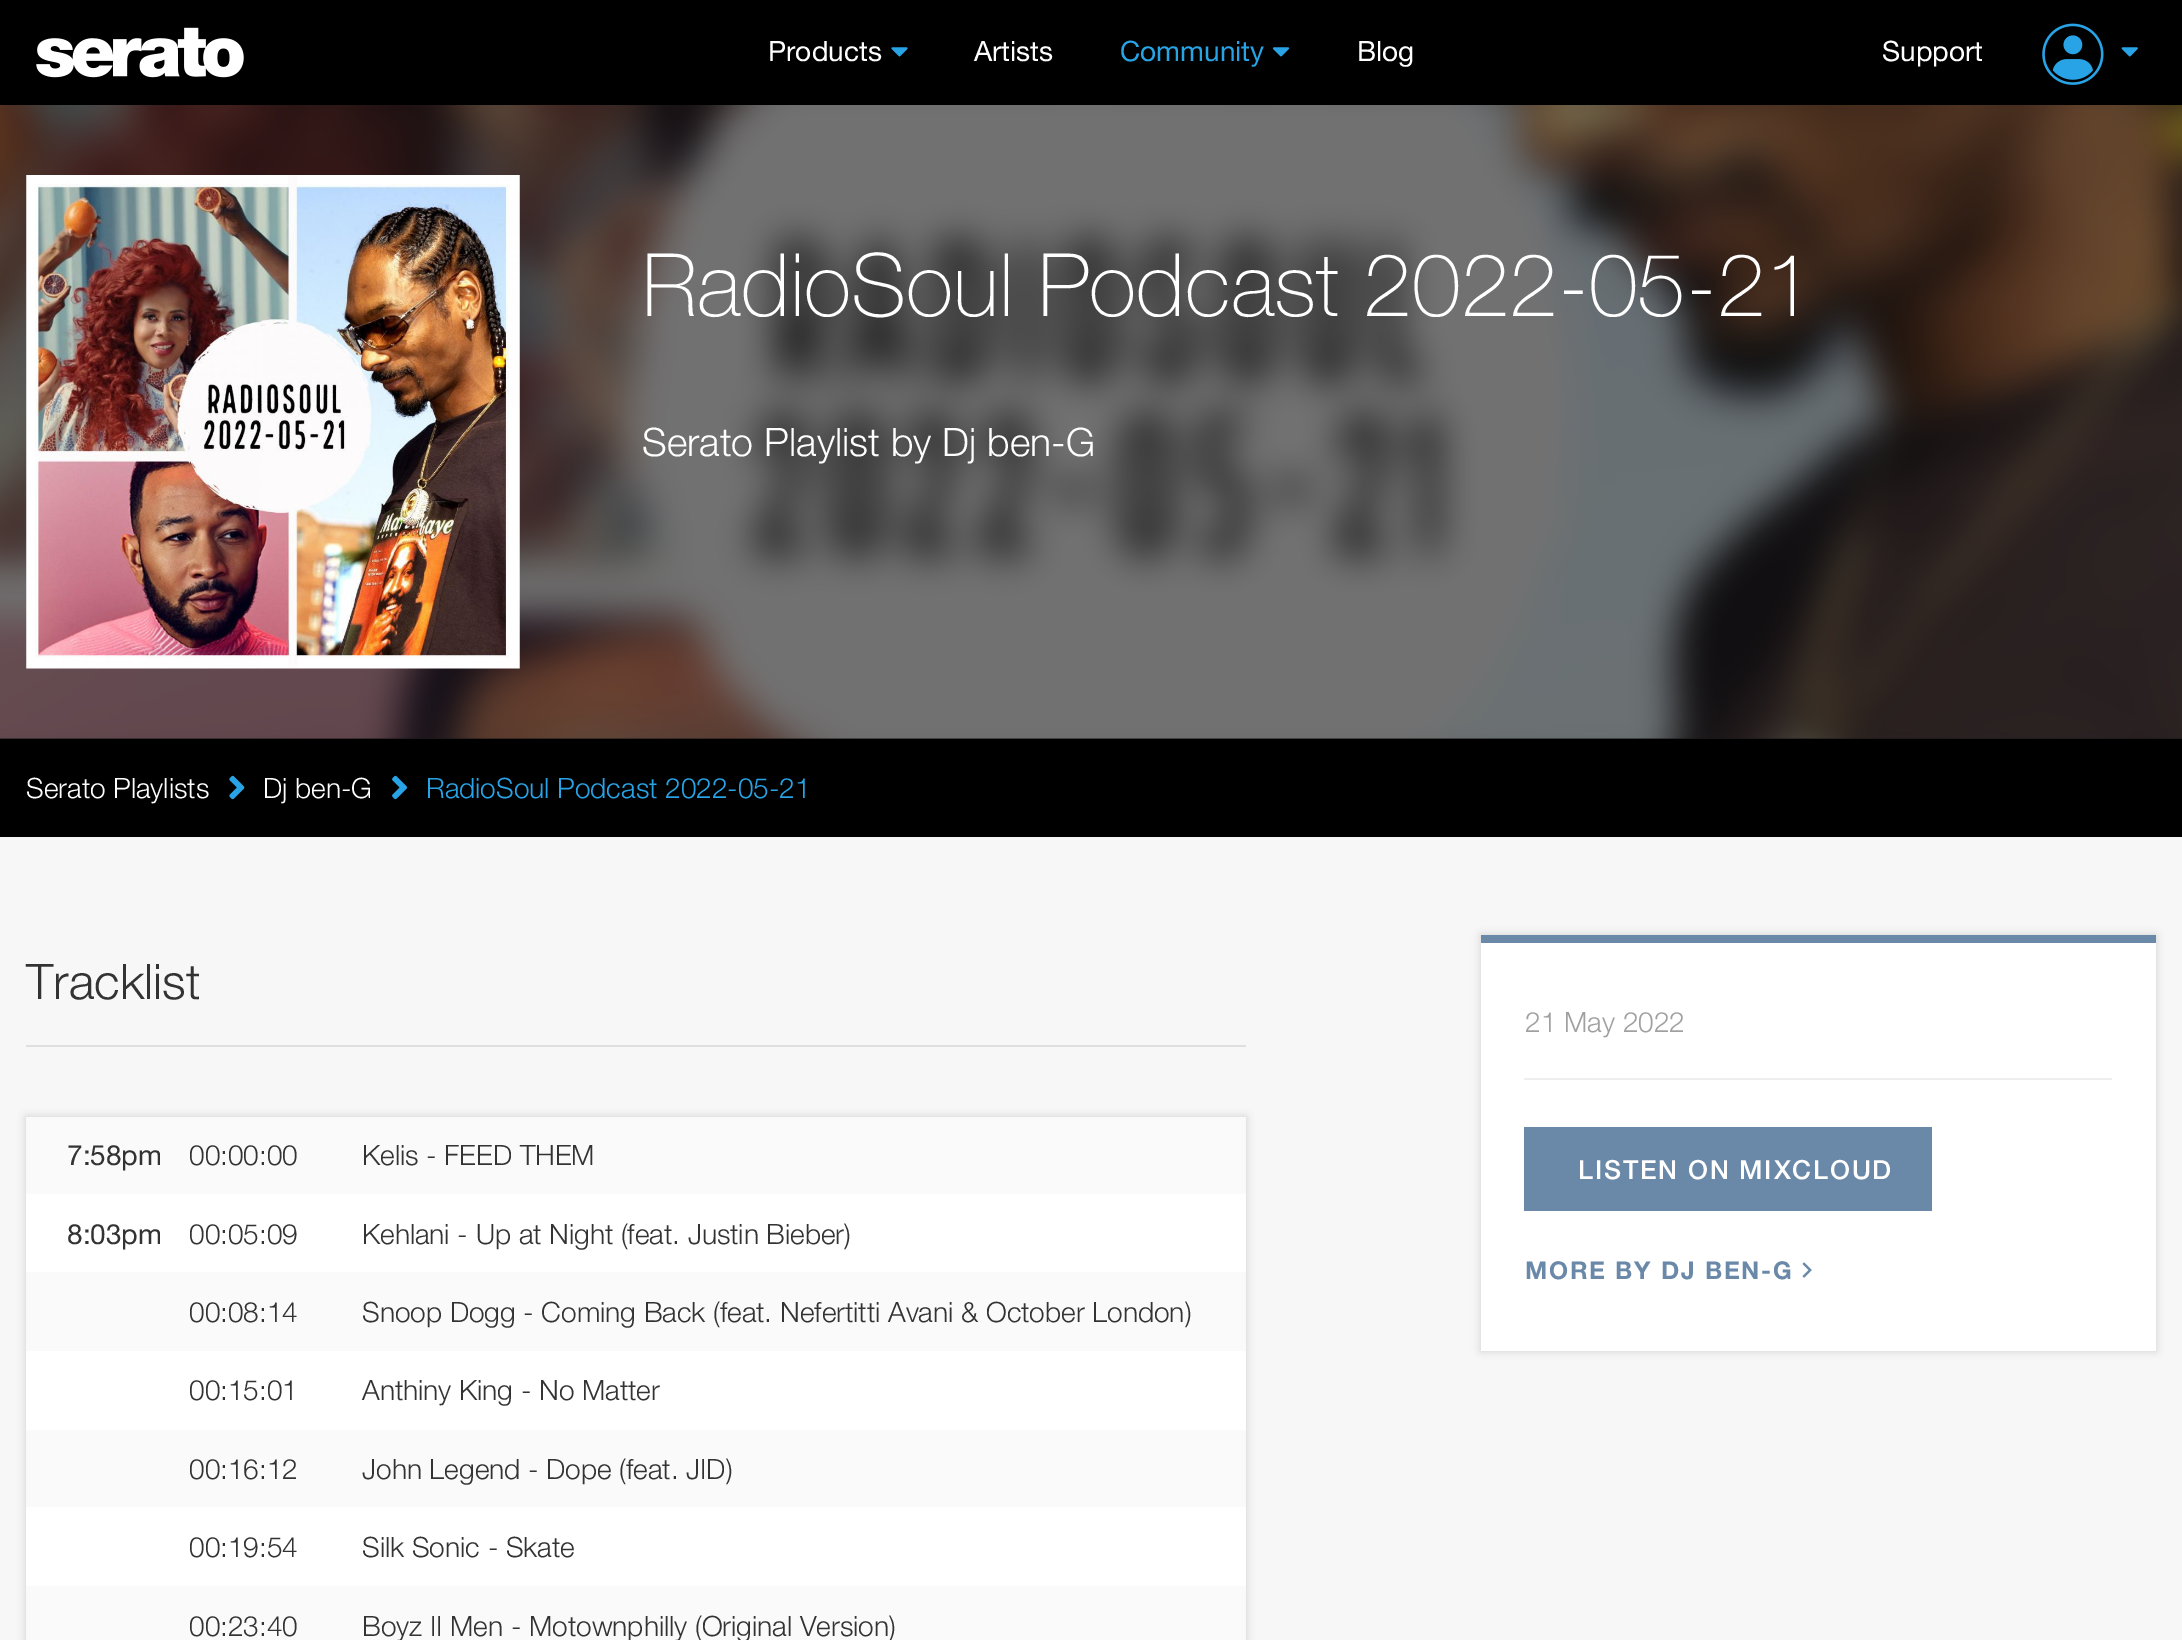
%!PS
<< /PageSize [2182 1640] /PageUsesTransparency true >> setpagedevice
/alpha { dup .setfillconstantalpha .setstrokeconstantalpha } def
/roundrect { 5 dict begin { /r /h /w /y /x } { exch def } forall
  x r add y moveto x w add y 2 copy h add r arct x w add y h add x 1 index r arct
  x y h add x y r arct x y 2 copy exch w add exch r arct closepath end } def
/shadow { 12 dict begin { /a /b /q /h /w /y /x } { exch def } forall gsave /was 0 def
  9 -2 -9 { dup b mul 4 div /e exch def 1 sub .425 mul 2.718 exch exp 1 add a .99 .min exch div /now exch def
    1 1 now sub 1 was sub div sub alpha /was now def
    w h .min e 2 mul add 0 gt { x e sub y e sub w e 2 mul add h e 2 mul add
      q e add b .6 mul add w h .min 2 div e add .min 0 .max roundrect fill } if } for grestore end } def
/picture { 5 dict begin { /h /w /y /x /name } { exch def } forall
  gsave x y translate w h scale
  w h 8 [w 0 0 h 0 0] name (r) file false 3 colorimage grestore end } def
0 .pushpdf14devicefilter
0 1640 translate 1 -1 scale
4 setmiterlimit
0 setgray
0 0 2182 1640 rectfill
(img1.rgb) 36 27 208 51 picture
/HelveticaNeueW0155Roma-Regular [28 0 0 -28 0 0] selectfont
1 setgray
768 61 moveto (Products) show
(img2.rgb) 891 47 17 10 picture
974 61 moveto (Artists) show
0.157 0.643 0.902 setrgbcolor
1120 61 moveto (Community) show
(img3.rgb) 1272 47 18 10 picture
1 setgray
1357 61 moveto (Blog) show
1882 61 moveto (Support) show
(img4.rgb) 2042 23 62 62 picture
(img5.rgb) 2121 47 17 10 picture
0.969 setgray
0 837 2182 803 rectfill
0.086 setgray
0 105 2182 634 rectfill
(img6.rgb) 0 105 2182 634 picture
(img7.rgb) 26 175 494 494 picture
/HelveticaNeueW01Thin-Thin [87.5 0 0 -87.5 0 0] selectfont
1 setgray
642 316 moveto (RadioSoul Podcast 2022-05-21) show
/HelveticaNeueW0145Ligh-Light [39.25 0 0 -39.25 0 0] selectfont
642 456 moveto (Serato Playlist by Dj ben-G) show
/HelveticaNeueW0145Ligh-Light [28 0 0 -28 0 0] selectfont
26 798 moveto (Serato Playlists) show
(img8.rgb) 229 775 16 25 picture
263 798 moveto (Dj ben-G) show
(img9.rgb) 392 775 16 25 picture
0.157 0.643 0.902 setrgbcolor
426 798 moveto (RadioSoul Podcast 2022-05-21) show
0.875 setgray
26 1045 1220 2 rectfill
/HelveticaNeueW0145Ligh-Light [49 0 0 -49 0 0] selectfont
0.2 setgray
26 999 moveto (Tracklist) show
0 setgray
26 1117 1220 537 0 4.5 0.15 shadow
1 setgray
26 1194 1220 392 rectfill
0.98 setgray
26 1117 1220 77 rectfill
/HelveticaNeueW0155Roma-Regular [28 0 0 -28 0 0] selectfont
0.2 setgray
67 1165 moveto (7:58pm) show
/HelveticaNeueW0145Ligh-Light [28 0 0 -28 0 0] selectfont
189 1165 moveto (00:00:00) show
362 1165 moveto (Kelis - FEED THEM) show
/HelveticaNeueW0155Roma-Regular [28 0 0 -28 0 0] selectfont
67 1244 moveto (8:03pm) show
/HelveticaNeueW0145Ligh-Light [28 0 0 -28 0 0] selectfont
189 1244 moveto (00:05:09) show
362 1244 moveto (Kehlani - Up at Night \(feat. Justin Bieber\)) show
0.98 setgray
26 1272 1220 79 rectfill
0.2 setgray
189 1322 moveto (00:08:14) show
362 1322 moveto (Snoop Dogg - Coming Back \(feat. Nefertitti Avani & October London\)) show
189 1400 moveto (00:15:01) show
362 1400 moveto (Anthiny King - No Matter) show
0.98 setgray
26 1430 1220 77 rectfill
0.2 setgray
189 1479 moveto (00:16:12) show
362 1479 moveto (John Legend - Dope \(feat. JID\)) show
189 1557 moveto (00:19:54) show
362 1557 moveto (Silk Sonic - Skate) show
0.98 setgray
26 1586 1220 54 rectfill
0.2 setgray
189 1636 moveto (00:23:40) show
362 1636 moveto (Boyz II Men - Motownphilly \(Original Version\)) show
0 setgray
1481 935 675 416 0 4.5 0.15 shadow
1 setgray
1481 943 675 408 rectfill
0.416 0.533 0.659 setrgbcolor
1481 935 675 8 rectfill
0.631 0.627 0.627 setrgbcolor
1525 1032 moveto (21 May 2022) show
0.933 setgray
1524 1078 588 2 rectfill
0.416 0.533 0.659 setrgbcolor
1524 1127 408 84 rectfill
/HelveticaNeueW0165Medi-Medium [26.25 0 0 -26.25 0 0] selectfont
1 setgray
1578 1179 moveto 1.75 0 (LISTEN ON MIXCLOUD) ashow
/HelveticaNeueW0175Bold-Bold [24.5 0 0 -24.5 0 0] selectfont
0.416 0.533 0.659 setrgbcolor
1525 1279 moveto 1.75 0 (MORE BY DJ BEN-G) ashow
(img10.rgb) 1802 1262 10 16 picture
.poppdf14devicefilter showpage
